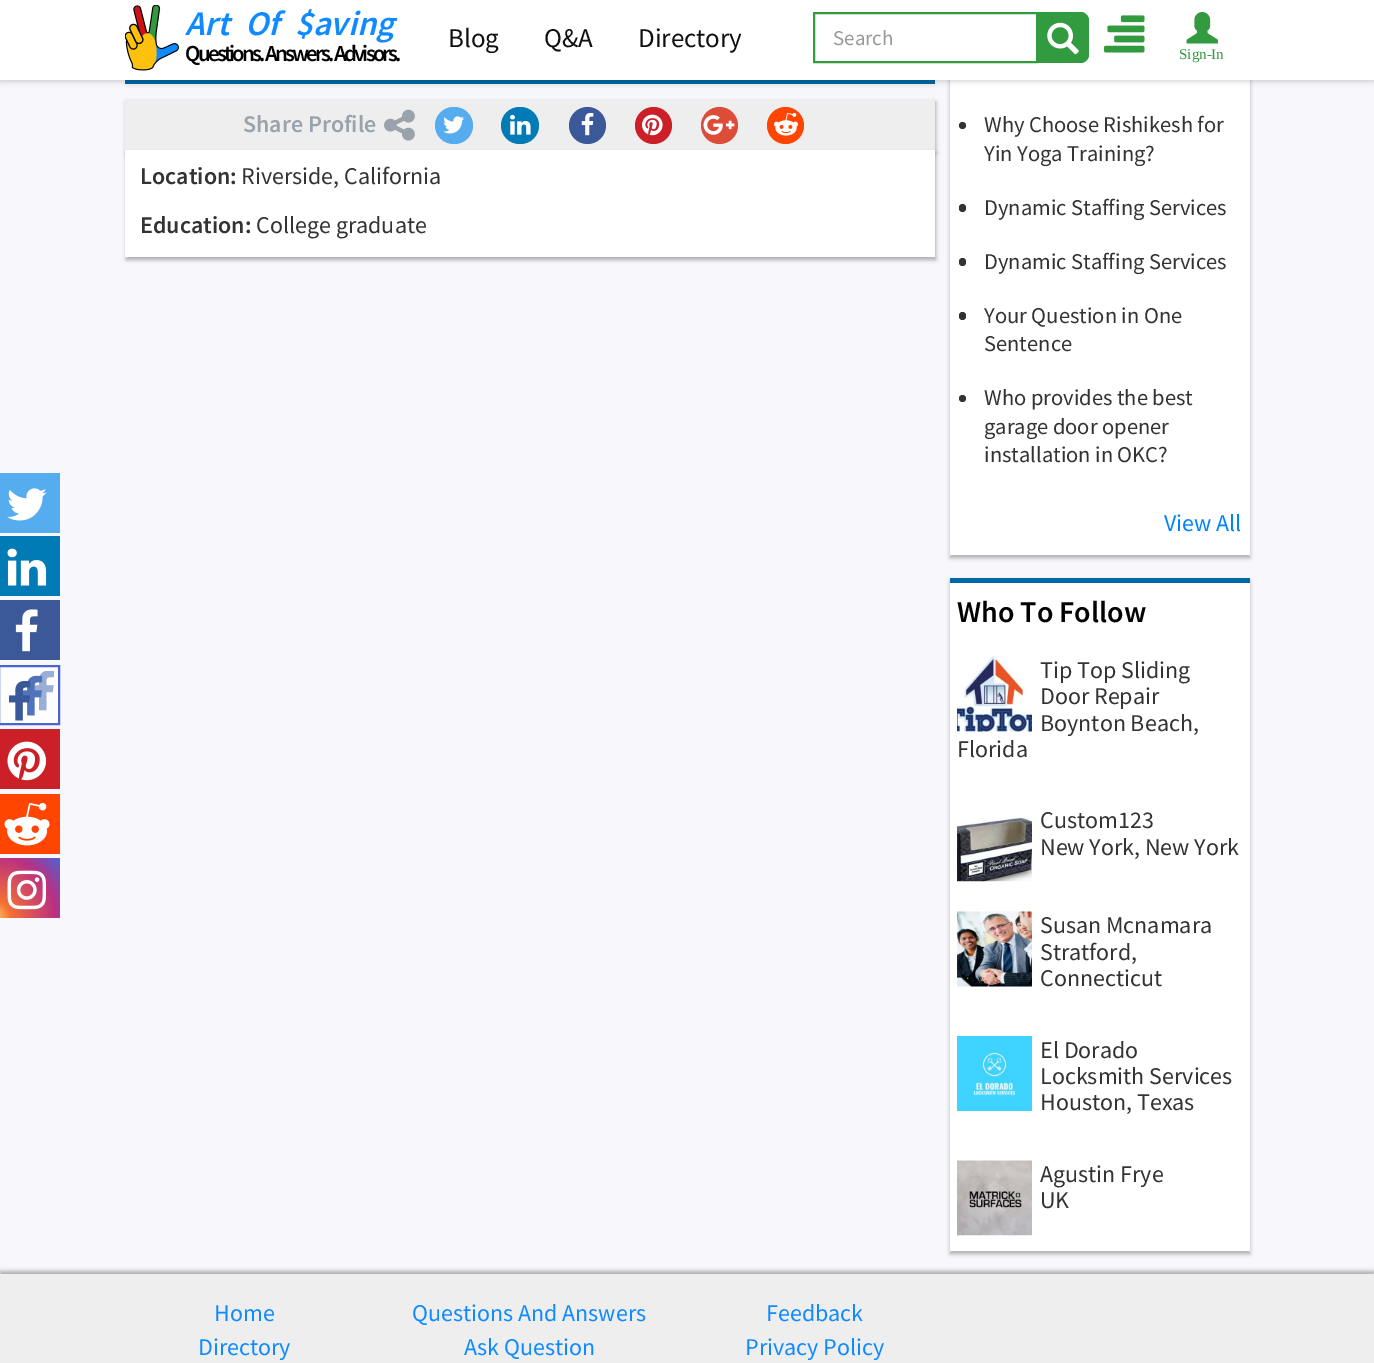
%!PS
<< /PageSize [1374 1363] /PageUsesTransparency true >> setpagedevice
/alpha { dup .setfillconstantalpha .setstrokeconstantalpha } def
/roundrect { 5 dict begin { /r /h /w /y /x } { exch def } forall
  x r add y moveto x w add y 2 copy h add r arct x w add y h add x 1 index r arct
  x y h add x y r arct x y 2 copy exch w add exch r arct closepath end } def
/shadow { 12 dict begin { /a /b /q /h /w /y /x } { exch def } forall gsave /was 0 def
  9 -2 -9 { dup b mul 4 div /e exch def 1 sub .425 mul 2.718 exch exp 1 add a .99 .min exch div /now exch def
    1 1 now sub 1 was sub div sub alpha /was now def
    w h .min e 2 mul add 0 gt { x e sub y e sub w e 2 mul add h e 2 mul add
      q e add b .6 mul add w h .min 2 div e add .min 0 .max roundrect fill } if } for grestore end } def
/picture { 5 dict begin { /h /w /y /x /name } { exch def } forall
  gsave x y translate w h scale
  w h 8 [w 0 0 h 0 0] name (r) file false 3 colorimage grestore end } def
0 .pushpdf14devicefilter
0 1363 translate 1 -1 scale
4 setmiterlimit
0.973 0.973 0.988 setrgbcolor
0 0 1374 1363 rectfill
0.933 setgray
126 38 810 49 0 2 1 shadow
0 0.408 0.643 setrgbcolor
125 80 810 4 rectfill
0 setgray
950 38 300 520 0 2 0.3 shadow
1 setgray
950 80 300 475 rectfill
0 setgray
0 2 1374 79 0 3 0.2 shadow
1 setgray
0 0 1374 80 rectfill
(img1.rgb) 125 5 54 66 picture
/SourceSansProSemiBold-SemiBoldItalic [34.5 0 0 -34.5 0 0] selectfont
0.059 0.541 1 setrgbcolor
185 35 moveto (Art) show
245 35 moveto (Of) show
295 35 moveto ($aving) show
/SourceSansProSemiBold-SemiBold [22.9 0 0 -22.9 0 0] selectfont
0 setgray
185 61 moveto -2.75 0 (Questions. Answers. Advisors.) ashow
/SourceSansPro-Regular [27 0 0 -27 0 0] selectfont
0.063 setgray
448 47 moveto (Blog) show
544 47 moveto (Q&A) show
638 47 moveto (Directory) show
0.196 0.608 0.247 setrgbcolor
2 setlinewidth
814 13 223 49 rectstroke
/SourceSansPro-Regular [21 0 0 -21 0 0] selectfont
0.6 setgray
833 45 moveto (Search) show
0.196 0.608 0.247 setrgbcolor
newpath 1038 12 moveto 1080 12 lineto 1085 12 1089 16 1089 21 curveto 1089 54 lineto 1089 59 1085 63 1080 63 curveto 1038 63 lineto closepath fill
newpath 1038 12 moveto 1080 12 lineto 1085 12 1089 16 1089 21 curveto 1089 54 lineto 1089 59 1085 63 1080 63 curveto 1038 63 lineto closepath 1038 14 moveto 1080 14 lineto 1084 14 1088 17 1088 21 curveto 1088 54 lineto 1088 58 1084 62 1080 62 curveto 1038 62 lineto closepath eofill
(img2.rgb) 1047 22 32 33 picture
(img3.rgb) 1104 15 41 38 picture
(img4.rgb) 1186 12 32 32 picture
/LiberationSerif-Regular [15 0 0 -15 0 0] selectfont
1179 59 moveto (Sign-In) show
0.333 0.675 0.933 setrgbcolor
0 473 60 60 rectfill
(img5.rgb) 7 488 40 33 picture
0 0.482 0.71 setrgbcolor
0 536 60 60 rectfill
(img6.rgb) 7 548 40 38 picture
0.231 0.349 0.596 setrgbcolor
0 600 60 60 rectfill
(img7.rgb) 15 609 23 43 picture
1 setgray
0 667 58 56 rectfill
(img8.rgb) 9 671 45 50 picture
0.298 0.388 0.824 setrgbcolor
-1 666 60 58 rectstroke
0.796 0.125 0.153 setrgbcolor
0 729 60 60 rectfill
(img9.rgb) 7 741 40 40 picture
1 0.271 0 setrgbcolor
0 794 60 60 rectfill
(img10.rgb) 4 802 46 44 picture
gsave newpath 0 858 moveto 60 858 lineto 60 918 lineto 0 918 lineto closepath clip newpath -7.5 918 translate 90 90 scale
<< /ShadingType 3 /ColorSpace /DeviceRGB /Coords [0 0 0 0 0 1] /Extend [true true] /Function << /FunctionType 3 /Domain [0 1] /Functions [<< /FunctionType 2 /Domain [0 1] /C0 [0.996 0.835 0.463] /C1 [0.957 0.443 0.2] /N 1 >> << /FunctionType 2 /Domain [0 1] /C0 [0.957 0.443 0.2] /C1 [0.737 0.188 0.506] /N 1 >> << /FunctionType 2 /Domain [0 1] /C0 [0.737 0.188 0.506] /C1 [0.298 0.388 0.824] /N 1 >>] /Bounds [0.2 0.7] /Encode [0 1 0 1 0 1] >> >> shfill grestore
(img11.rgb) 7 870 40 40 picture
0 setgray
126 102 810 51 0 2 0.3 shadow
0.933 setgray
125 99 810 51 rectfill
/SourceSansProSemiBold-SemiBold [24 0 0 -24 0 0] selectfont
0.604 0.635 0.671 setrgbcolor
243 132 moveto (Share Profile) show
(img12.rgb) 384 109 31 32 picture
0.333 0.675 0.933 setrgbcolor
435 107 38 37 18.5 roundrect fill
(img13.rgb) 443 116 21 18 picture
0 0.482 0.71 setrgbcolor
501 107 38 37 18.5 roundrect fill
(img14.rgb) 510 114 21 21 picture
0.231 0.349 0.596 setrgbcolor
newpath 587.5 125.5 18.5 0 360 arc closepath fill
(img15.rgb) 581 112 13 24 picture
0.796 0.125 0.153 setrgbcolor
newpath 653.5 125.5 18.5 0 360 arc closepath fill
(img16.rgb) 642 114 21 22 picture
0.867 0.294 0.224 setrgbcolor
newpath 719.5 125.5 18.5 0 360 arc closepath fill
(img17.rgb) 703 115 32 20 picture
1 0.271 0 setrgbcolor
newpath 785.5 125.5 18.5 0 360 arc closepath fill
(img18.rgb) 774 112 24 24 picture
0 setgray
126 153 810 107 0 2 0.3 shadow
1 setgray
125 150 810 107 rectfill
0.2 setgray
140 184 moveto (Location:) show
/SourceSansPro-Regular [24 0 0 -24 0 0] selectfont
241 184 moveto (Riverside, California) show
/SourceSansProSemiBold-SemiBold [24 0 0 -24 0 0] selectfont
140 233 moveto (Education:) show
/SourceSansPro-Regular [24 0 0 -24 0 0] selectfont
256 233 moveto (College graduate) show
newpath 962.5 125.5 3.5 0 360 arc closepath fill
/SourceSansPro-Regular [22.5 0 0 -22.5 0 0] selectfont
984 132 moveto (Why Choose Rishikesh for) show
984 161 moveto (Yin Yoga Training?) show
959 204 7 8 3.5 roundrect fill
984 215 moveto (Dynamic Staffing Services) show
959 258 7 8 3.5 roundrect fill
984 269 moveto (Dynamic Staffing Services) show
959 312 7 8 3.5 roundrect fill
984 323 moveto (Your Question in One) show
984 351 moveto (Sentence) show
newpath 962.5 398.5 3.5 0 360 arc closepath fill
984 405 moveto (Who provides the best) show
984 434 moveto (garage door opener) show
984 462 moveto (installation in OKC?) show
/SourceSansPro-Regular [24 0 0 -24 0 0] selectfont
0 0.522 1 setrgbcolor
1164 531 moveto (View All) show
0 setgray
950 581 300 673 0 2 0.3 shadow
1 setgray
950 583 300 668 rectfill
0 0.408 0.643 setrgbcolor
950 578 300 5 rectfill
/SourceSansProSemiBold-SemiBold [30 0 0 -30 0 0] selectfont
0 setgray
957 622 moveto (Who To Follow) show
(img19.rgb) 957 656 75 76 picture
/SourceSansPro-Regular [24 0 0 -24 0 0] selectfont
0.2 setgray
1040 678 moveto (Tip Top Sliding) show
1040 704 moveto (Door Repair) show
1040 731 moveto (Boynton Beach,) show
957 757 moveto (Florida) show
(img20.rgb) 957 816 75 66 picture
1040 828 moveto (Custom123) show
1040 855 moveto (New York, New York) show
(img21.rgb) 957 911 75 76 picture
1040 933 moveto (Susan Mcnamara) show
1040 960 moveto (Stratford,) show
1040 986 moveto (Connecticut) show
(img22.rgb) 957 1036 75 75 picture
1040 1058 moveto (El Dorado) show
1040 1084 moveto (Locksmith Services) show
1040 1110 moveto (Houston, Texas) show
(img23.rgb) 957 1160 75 76 picture
1040 1182 moveto (Agustin Frye) show
1040 1208 moveto (UK) show
0 setgray
0 1271 1374 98 0 2 0.3 shadow
0.933 setgray
0 1274 1374 89 rectfill
0.059 0.541 1 setrgbcolor
214 1321 moveto (Home) show
198 1355 moveto (Directory) show
412 1321 moveto (Questions And Answers) show
464 1355 moveto (Ask Question) show
766 1321 moveto (Feedback) show
745 1355 moveto (Privacy Policy) show
.poppdf14devicefilter showpage
